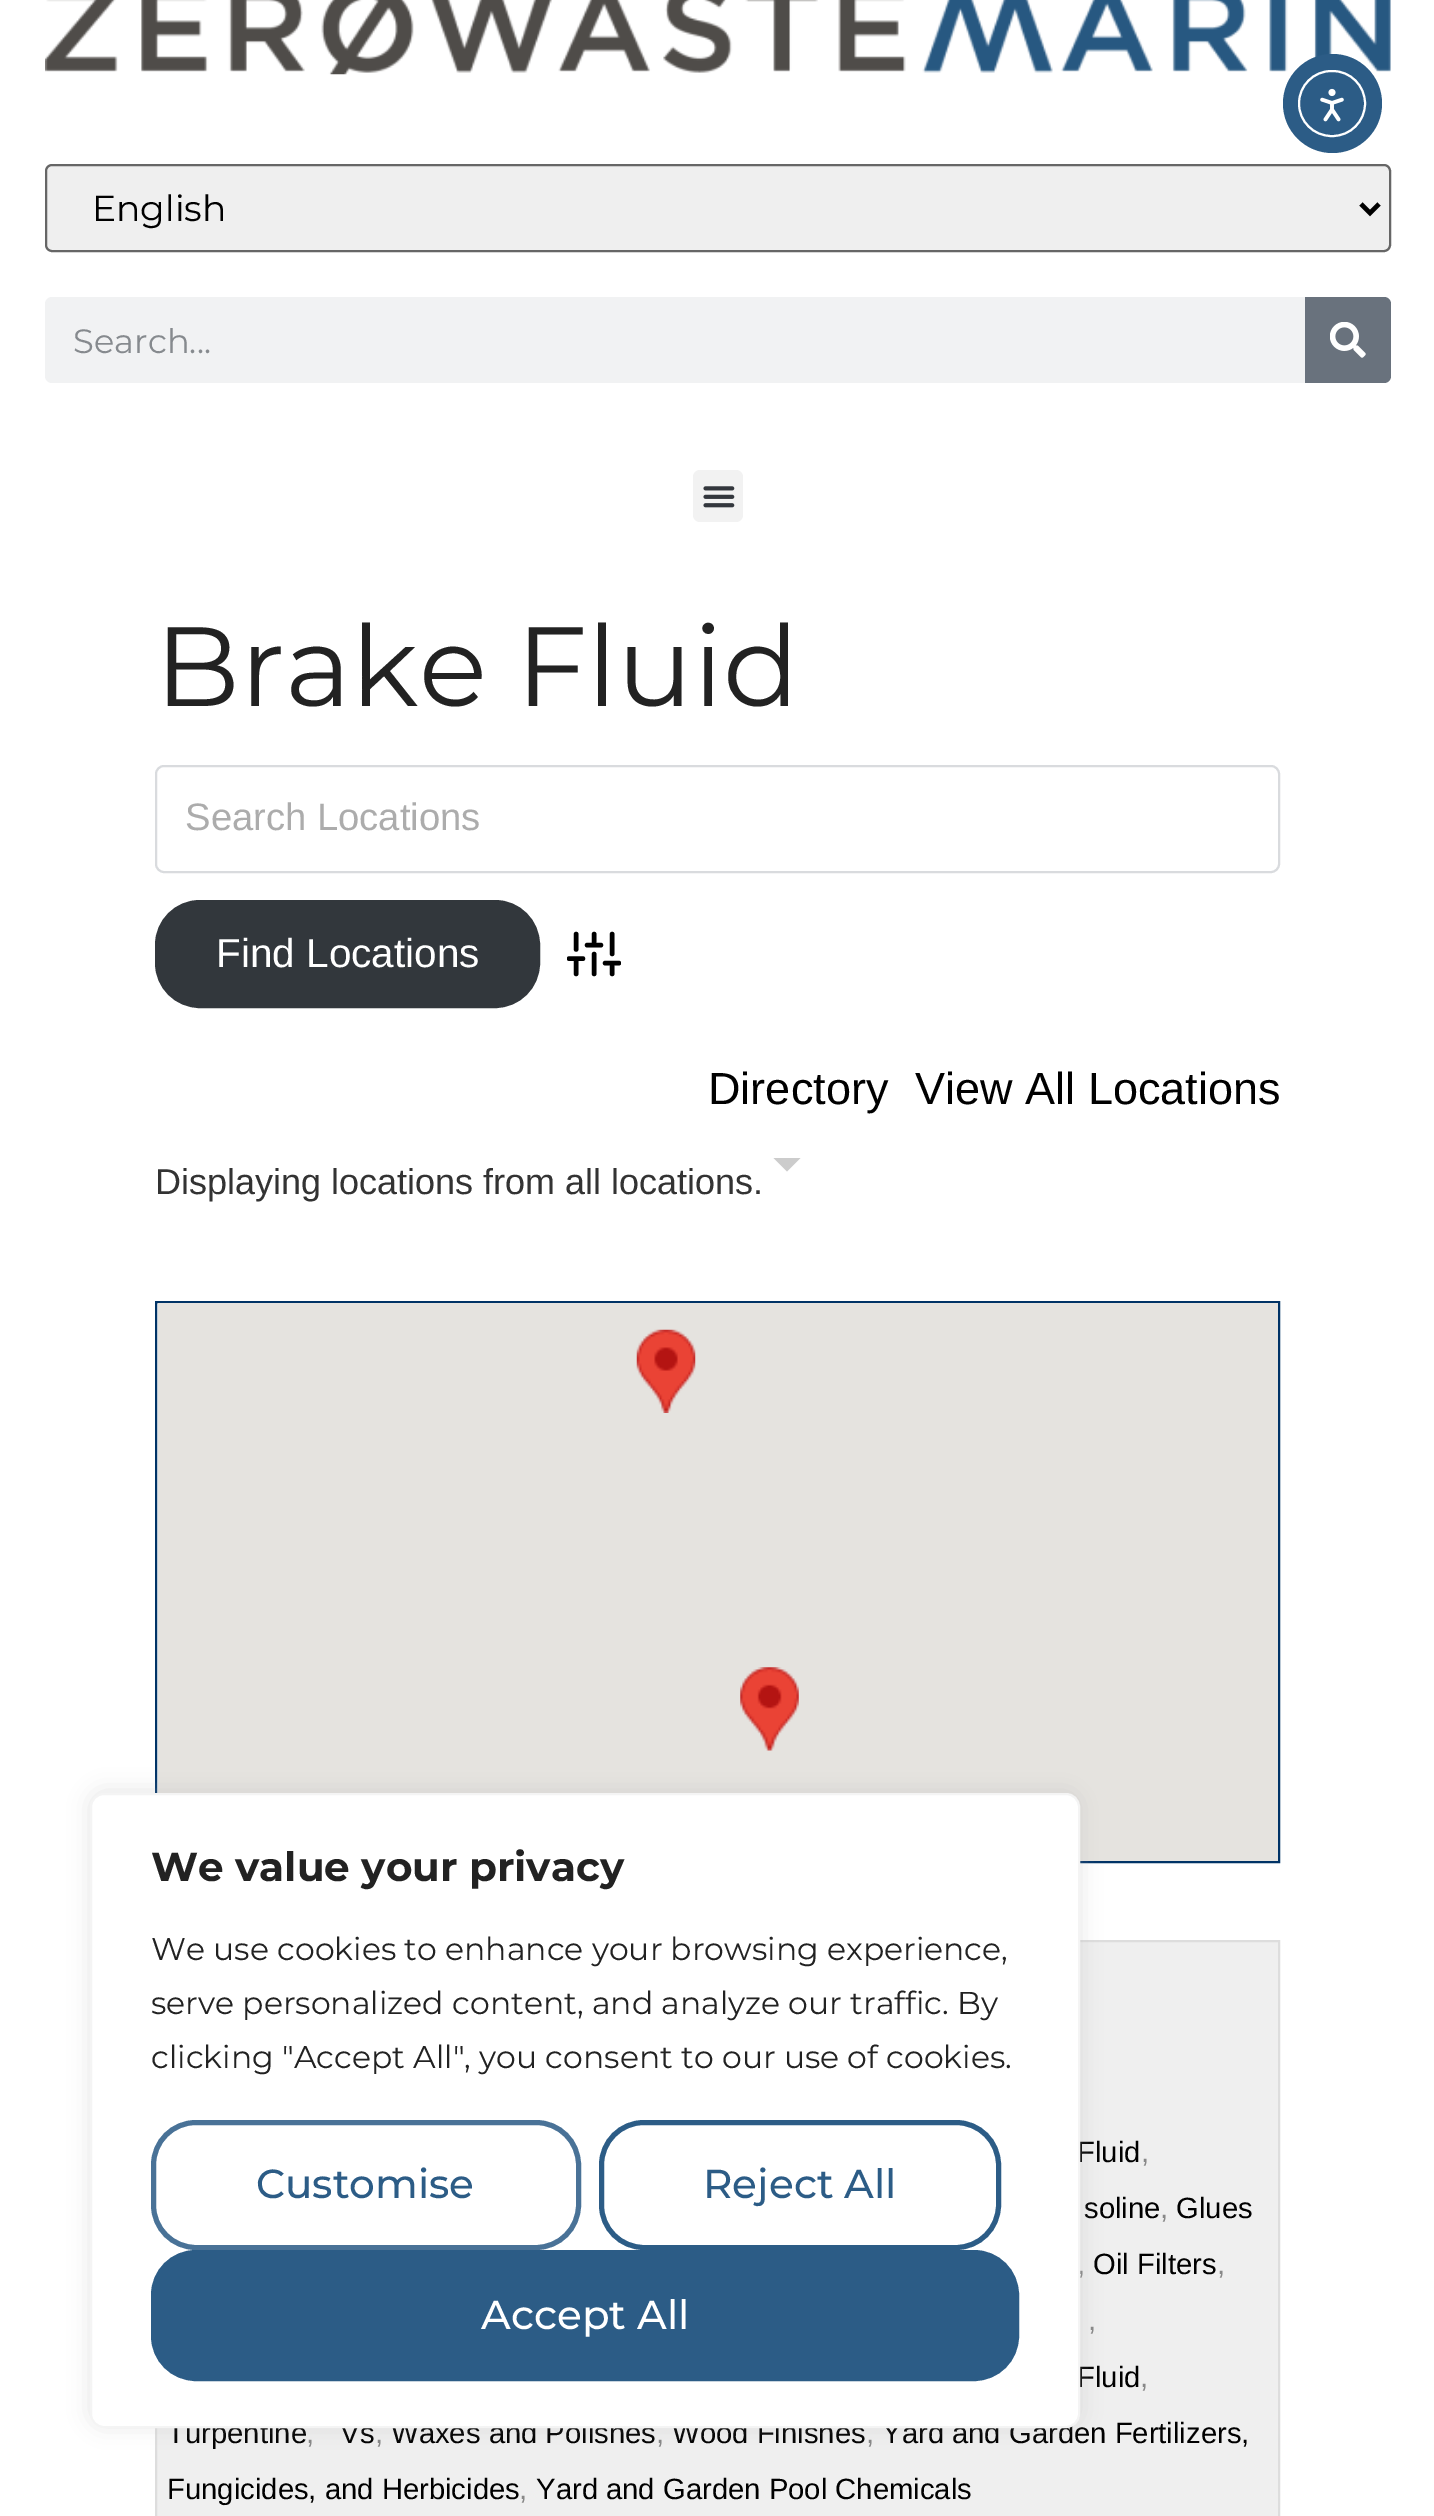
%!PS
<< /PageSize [1434 2516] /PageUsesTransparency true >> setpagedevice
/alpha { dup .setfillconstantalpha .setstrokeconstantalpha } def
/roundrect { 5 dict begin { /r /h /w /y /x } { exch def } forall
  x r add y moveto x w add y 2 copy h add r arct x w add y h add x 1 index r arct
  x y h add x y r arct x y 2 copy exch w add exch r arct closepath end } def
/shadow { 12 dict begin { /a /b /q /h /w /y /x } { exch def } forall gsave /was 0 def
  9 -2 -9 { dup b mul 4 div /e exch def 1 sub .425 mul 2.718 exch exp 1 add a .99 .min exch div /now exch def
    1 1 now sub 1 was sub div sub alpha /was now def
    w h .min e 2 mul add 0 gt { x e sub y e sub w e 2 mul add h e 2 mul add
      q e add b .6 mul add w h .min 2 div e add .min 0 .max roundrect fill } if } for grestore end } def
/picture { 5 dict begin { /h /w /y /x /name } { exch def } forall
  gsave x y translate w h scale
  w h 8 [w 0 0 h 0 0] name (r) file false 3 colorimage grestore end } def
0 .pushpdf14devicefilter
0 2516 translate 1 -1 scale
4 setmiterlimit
1 setgray
0 0 1434 2516 rectfill
(img2.rgb) 45 0 1346 75 picture
0.173 0.361 0.525 setrgbcolor
newpath 1332.5 103.5 49.5 0 360 arc closepath fill
1 setgray
2 setlinewidth
1299 71 66 65 32.5 roundrect stroke
(img1.rgb) 1320 88 24 34 picture
0.937 setgray
46 165 1344 86 6 roundrect gsave fill grestore
0.4 setgray
stroke
0 setgray
4.5 setlinewidth
newpath 1361 204 moveto 1370 213 lineto 1379 204 lineto stroke
/Montserrat-Regular [36 0 0 -36 0 0] selectfont
92 221 moveto (English) show
0.945 0.949 0.953 setrgbcolor
45 297 1346 86 7 roundrect fill
/Montserrat-Regular [33.75 0 0 -33.75 0 0] selectfont
0.525 0.541 0.557 setrgbcolor
73 353 moveto (Search...) show
0.412 0.447 0.49 setrgbcolor
newpath 1305 297 moveto 1384 297 lineto 1388 297 1391 300 1391 304 curveto 1391 376 lineto 1391 380 1388 383 1384 383 curveto 1305 383 lineto closepath fill
(img3.rgb) 1330 322 36 36 picture
0.949 setgray
693 470 50 52 7 roundrect fill
(img4.rgb) 703 486 32 22 picture
/Montserrat-Regular [112.5 0 0 -112.5 0 0] selectfont
0.133 setgray
155 706 moveto (Brake Fluid) show
0.851 0.859 0.871 setrgbcolor
2 setlinewidth
156 766 1123 106 8 roundrect stroke
/LiberationSans-Regular [38.25 0 0 -38.25 0 0] selectfont
0.675 setgray
185 830 moveto (Search Locations) show
0.196 0.216 0.235 setrgbcolor
156 901 383 106 44 roundrect gsave fill grestore
stroke
/LiberationSans-Regular [40.5 0 0 -40.5 0 0] selectfont
1 setgray
216 967 moveto (Find Locations) show
gsave
567 927 54 54 rectclip
0 setgray
4.5 setlinewidth
1 setlinecap
1 setlinejoin
newpath 576 974 moveto 576 958.5 lineto 576 949.5 moveto 576 934 lineto 594 974 moveto 594 954 lineto 594 945 moveto 594 934 lineto 612 974 moveto 612 963 lineto 612 954 moveto 612 934 lineto 569 958.5 moveto 583 958.5 lineto 587 945 moveto 601 945 lineto 605 963 moveto 619 963 lineto stroke
grestore
/LiberationSans-Regular [45 0 0 -45 0 0] selectfont
0 setgray
708 1104 moveto (Directory) show
915 1104 moveto (View All Locations) show
0.8 setgray
newpath 773.5 1158 moveto 800.5 1158 lineto 787 1171.5 lineto closepath fill
/LiberationSans-Regular [36 0 0 -36 0 0] selectfont
0.2 setgray
155 1194 moveto (Displaying locations from all locations.) show
0 0.2 0.4 setrgbcolor
156 1302 1123 560 rectstroke
0.898 0.89 0.875 setrgbcolor
158 1303 1120 558 rectfill
(img5.rgb) 636 1329 60 84 picture
(img6.rgb) 740 1667 59 84 picture
0.937 setgray
newpath 156 1941 moveto 1279 1941 lineto 1279 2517 lineto 156 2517 lineto closepath gsave fill grestore
0.867 setgray
stroke
/LiberationSans-Regular [29.25 0 0 -29.25 0 0] selectfont
0 setgray
1077 2162 moveto (Fluid) show
0.533 setgray
1141 2162 moveto (,) show
0 setgray
1084 2218 moveto (soline) show
0.533 setgray
1160 2218 moveto (,) show
0 setgray
1176 2218 moveto (Glues) show
0.533 setgray
1077 2274 moveto (,) show
0 setgray
1093 2274 moveto (Oil Filters) show
0.533 setgray
1217 2274 moveto (,) show
1088 2330 moveto (,) show
0 setgray
1077 2387 moveto (Fluid) show
0.533 setgray
1140 2387 moveto (,) show
0 setgray
167 2443 moveto (Turpentine) show
0.533 setgray
306 2443 moveto (,) show
0 setgray
340 2443 moveto (Vs) show
0.533 setgray
375 2443 moveto (,) show
0 setgray
391 2443 moveto (Waxes and Polishes) show
0.533 setgray
656 2443 moveto (,) show
0 setgray
672 2443 moveto (Wood Finishes) show
0.533 setgray
866 2443 moveto (,) show
0 setgray
882 2443 moveto (Yard and Garden Fertilizers,) show
167 2499 moveto (Fungicides, and Herbicides) show
0.533 setgray
519 2499 moveto (,) show
0 setgray
536 2499 moveto (Yard and Garden Pool Chemicals) show
0.675 0.671 0.671 setrgbcolor
90 1791 990 635 14 11 0.3 shadow
1 setgray
91 1794 988 633 13 roundrect gsave fill grestore
0.957 setgray
stroke
/Montserrat-Bold [40.5 0 0 -40.5 0 0] selectfont
0.133 setgray
151 1881 moveto (We value your privacy) show
/Montserrat-Regular [31.5 0 0 -31.5 0 0] selectfont
151 1960 moveto (We use cookies to enhance your browsing experience,) show
151 2014 moveto (serve personalized content, and analyze our traffic. By) show
151 2068 moveto (clicking "Accept All", you consent to our use of cookies.) show
0.286 0.447 0.592 setrgbcolor
5 setlinewidth
153.5 2122.5 425 125 42.5 roundrect stroke
/Montserrat-Medium [40.5 0 0 -40.5 0 0] selectfont
0.173 0.361 0.525 setrgbcolor
256 2198 moveto (Customise) show
601.5 2122.5 397 125 42.5 roundrect stroke
703 2198 moveto (Reject All) show
153.5 2252.5 863 126 42.5 roundrect gsave fill grestore
stroke
1 setgray
481 2329 moveto (Accept All) show
.poppdf14devicefilter showpage
